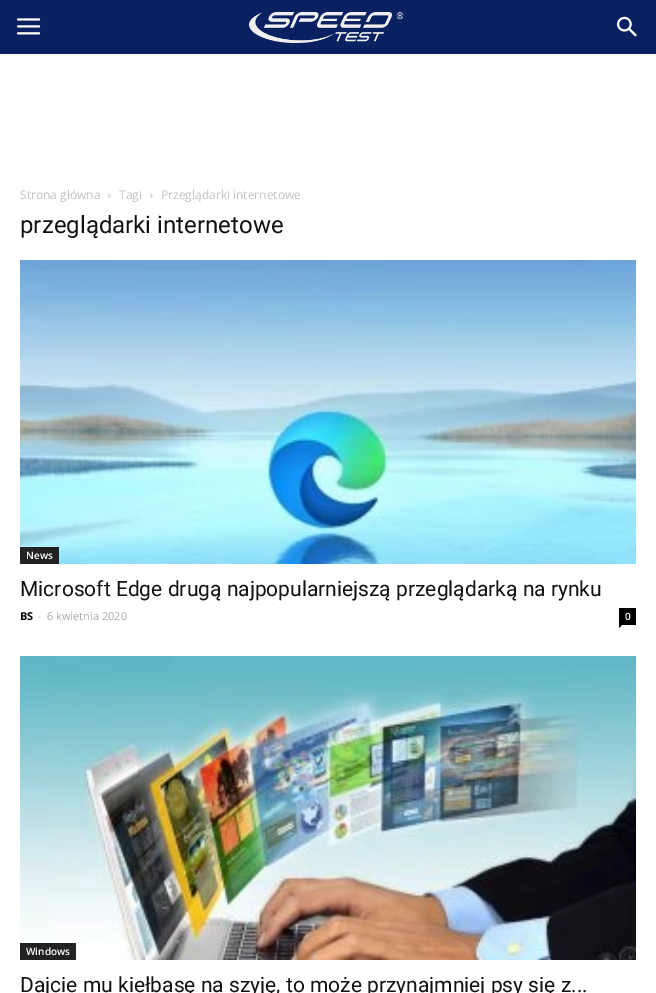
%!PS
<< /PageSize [656 993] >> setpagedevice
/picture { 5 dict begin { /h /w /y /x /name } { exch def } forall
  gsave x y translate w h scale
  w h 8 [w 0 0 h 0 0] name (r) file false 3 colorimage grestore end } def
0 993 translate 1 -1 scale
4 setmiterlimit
1 setgray
0 0 656 993 rectfill
0.035 0.129 0.38 setrgbcolor
0 0 656 54 rectfill
(img1.rgb) 17 18 24 17 picture
(img2.rgb) 249 12 155 31 picture
(img3.rgb) 617 16 20 21 picture
/OpenSans-Regular [12 0 0 -12 0 0] selectfont
0.765 setgray
20 199 moveto (Strona główna) show
(img4.rgb) 108 193 3 5 picture
119 199 moveto (Tagi) show
(img4.rgb) 150 193 3 5 picture
161 199 moveto (Przeglądarki internetowe) show
/Roboto-Regular [24 0 0 -24 0 0] selectfont
0.067 setgray
20 233 moveto (przeglądarki internetowe) show
(img5.rgb) 20 260 616 304 picture
0.133 setgray
20 547 39 17 rectfill
/OpenSans-SemiBold [10 0 0 -10 0 0] selectfont
1 setgray
26 559 moveto (News) show
/Roboto-Regular [21 0 0 -21 0 0] selectfont
0.067 setgray
20 596 moveto (Microsoft Edge drugą najpopularniejszą przeglądarką na rynku) show
/OpenSans-Bold [11 0 0 -11 0 0] selectfont
0 setgray
20 620 moveto (BS) show
/OpenSans-Regular [11 0 0 -11 0 0] selectfont
0.8 setgray
38 620 moveto (-) show
0.667 setgray
47 620 moveto (6 kwietnia 2020) show
0 setgray
619 608 17 17 rectfill
/OpenSans-SemiBold [10 0 0 -10 0 0] selectfont
1 setgray
625 620 moveto (0) show
0 setgray
newpath 619 625 moveto 622 625 lineto 619 628 lineto closepath fill
(img6.rgb) 20 656 616 304 picture
0.133 setgray
20 943 56 17 rectfill
1 setgray
26 955 moveto (Windows) show
/Roboto-Regular [21 0 0 -21 0 0] selectfont
0.067 setgray
20 992 moveto (Dajcie mu kiełbasę na szyję, to może przynajmniej psy się z...) show
showpage
